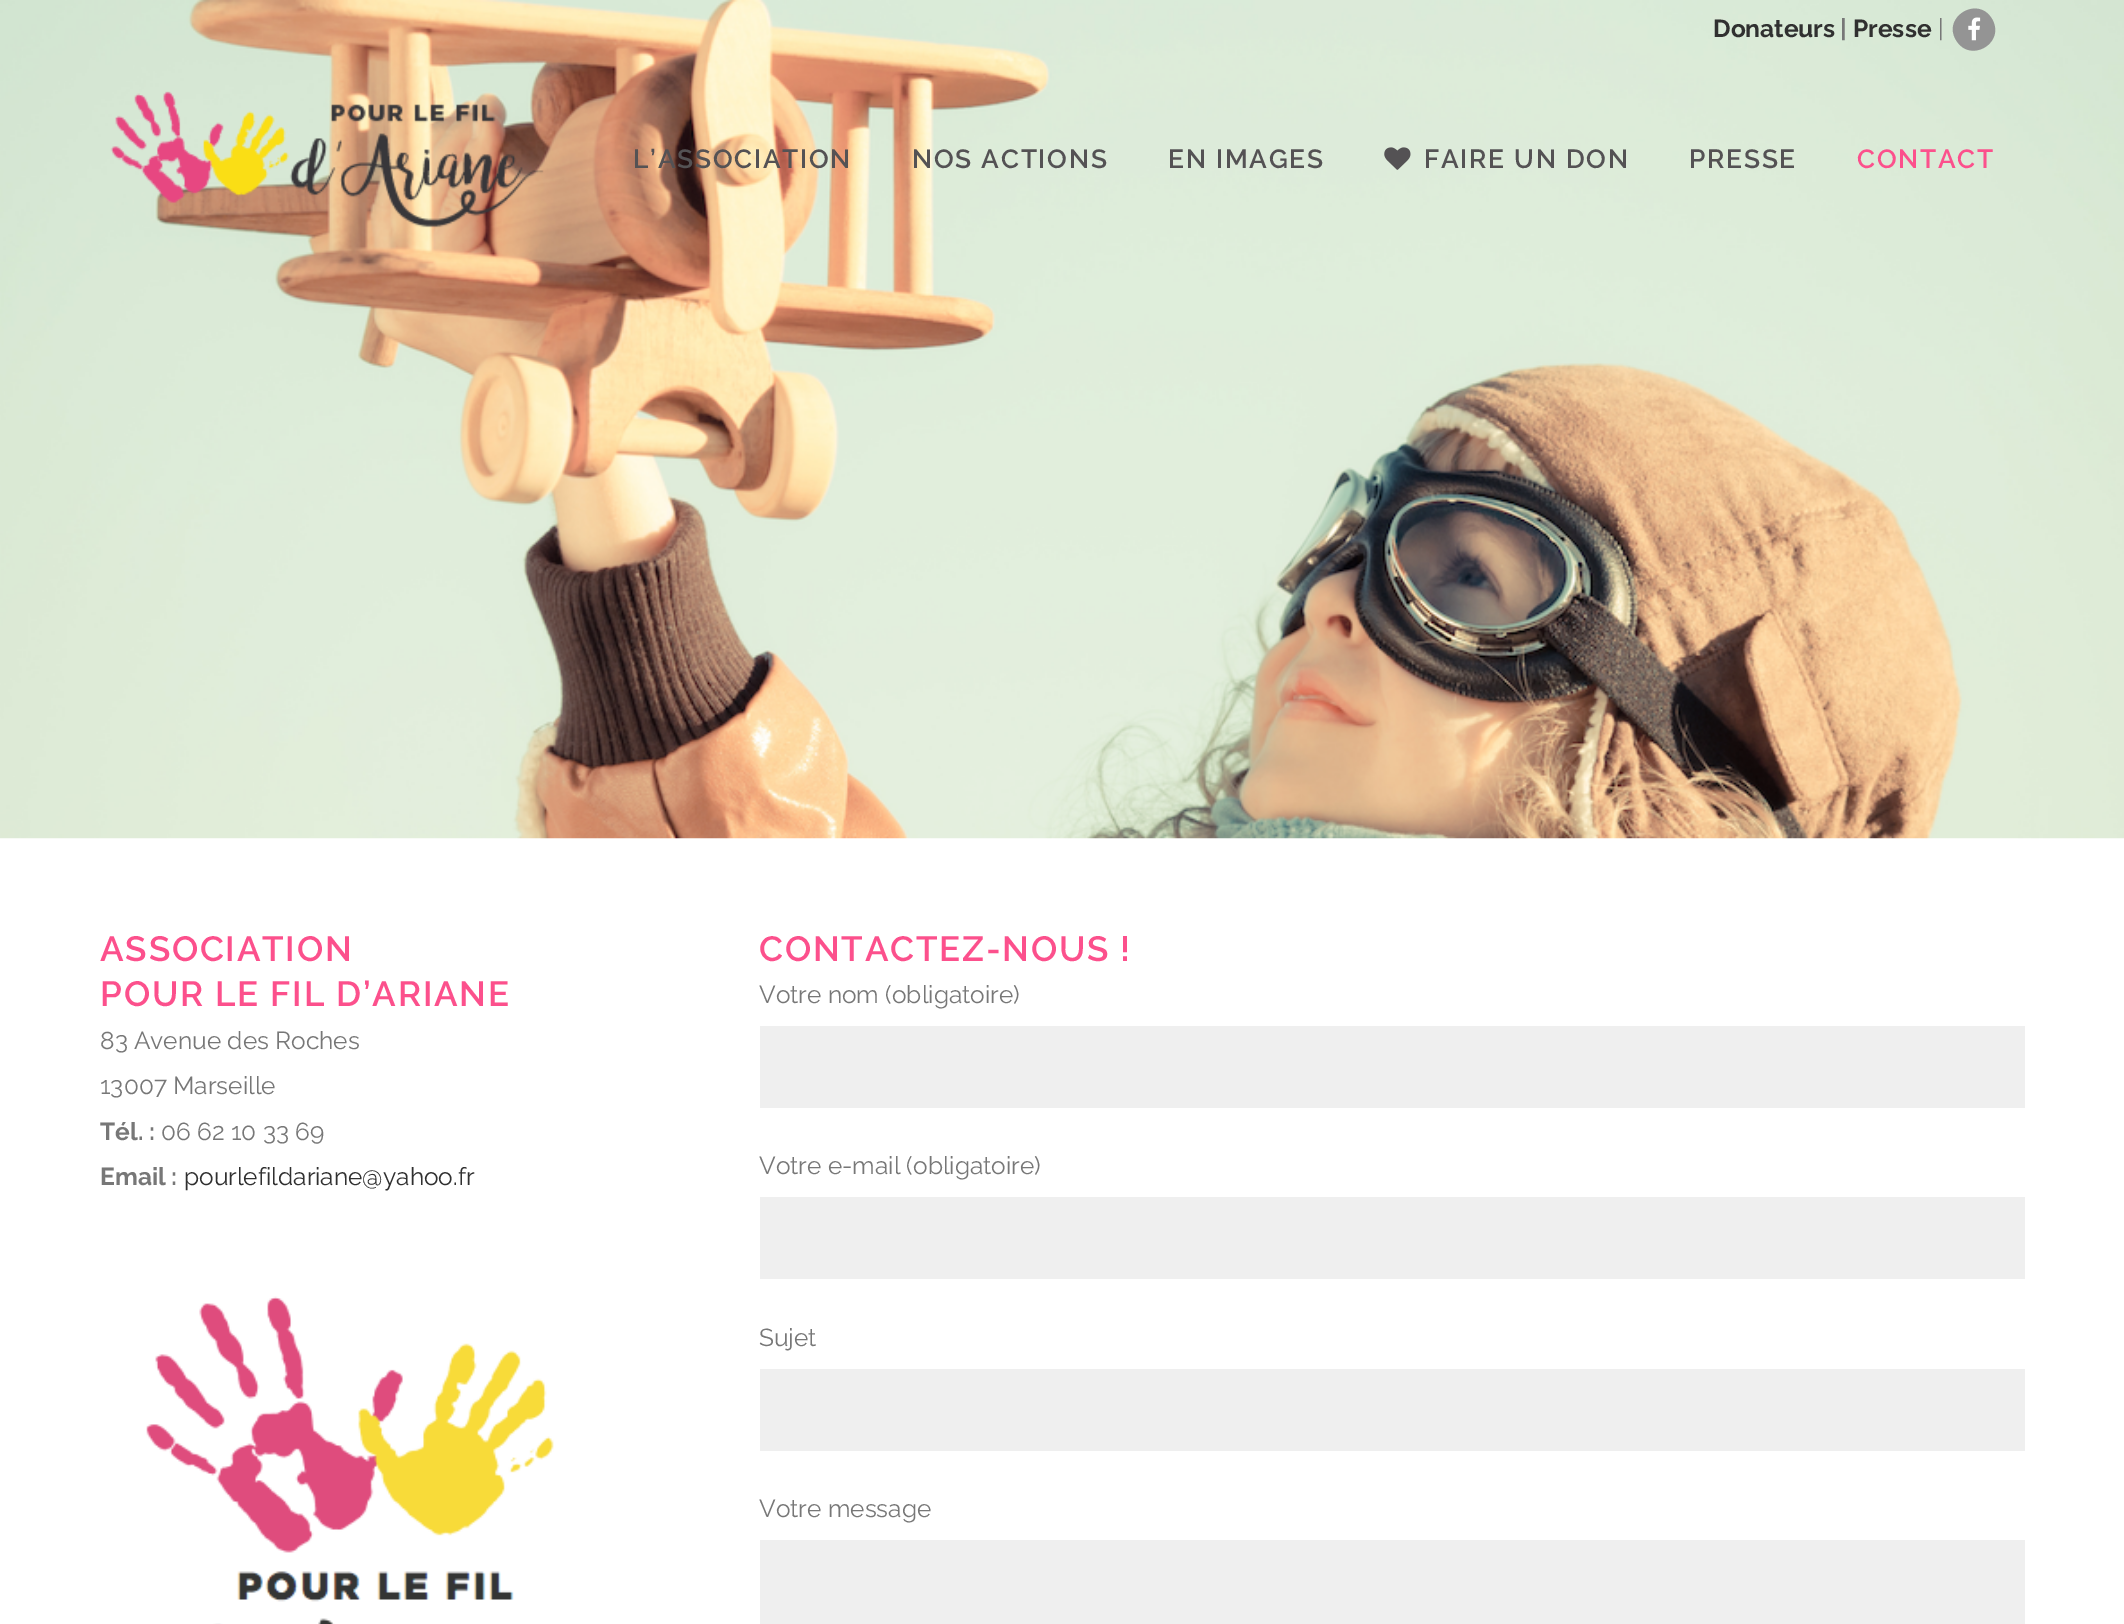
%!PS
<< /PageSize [2124 1624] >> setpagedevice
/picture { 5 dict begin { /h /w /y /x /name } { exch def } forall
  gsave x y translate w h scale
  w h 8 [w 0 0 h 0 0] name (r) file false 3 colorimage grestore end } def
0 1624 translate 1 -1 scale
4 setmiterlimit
1 setgray
0 0 2124 1624 rectfill
(img4.rgb) 0 0 2124 839 picture
/Raleway-Bold [24.5 0 0 -24.5 0 0] selectfont
0.188 setgray
1713 37 moveto (Donateurs) show
0.467 setgray
1840 37 moveto (|) show
0.188 setgray
1853 37 moveto (Presse) show
/Raleway-Regular [24.5 0 0 -24.5 0 0] selectfont
0.467 setgray
1938 37 moveto (|) show
0.58 setgray
newpath 1992 19 moveto 2006 43 1970 64 1956 40 curveto 1942 17 1978 -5 1992 19 curveto closepath fill
(img1.rgb) 1968 17 13 24 picture
(img2.rgb) 110 91 434 137 picture
/Raleway-SemiBold [26.25 0 0 -26.25 0 0] selectfont
0.329 0.322 0.329 setrgbcolor
633 168 moveto 1.75 0 (L’ASSOCIATION) ashow
912 168 moveto 1.75 0 (NOS ACTIONS) ashow
1168 168 moveto 1.75 0 (EN IMAGES) ashow
(img3.rgb) 1384 147 27 23 picture
1424 168 moveto 1.75 0 (FAIRE UN DON) ashow
1689 168 moveto 1.75 0 (PRESSE) ashow
0.988 0.314 0.549 setrgbcolor
1857 168 moveto 1.75 0 (CONTACT) ashow
/Raleway-SemiBold [35 0 0 -35 0 0] selectfont
100 961 moveto 1.75 0 (ASSOCIATION) ashow
100 1006 moveto 1.75 0 (POUR LE FIL D’ARIANE) ashow
/Raleway-Regular [24.5 0 0 -24.5 0 0] selectfont
0.467 setgray
100 1049 moveto (83 Avenue des Roches) show
100 1094 moveto (13007 Marseille) show
/Raleway-Bold [24.5 0 0 -24.5 0 0] selectfont
100 1140 moveto (Tél. :) show
/Raleway-Regular [24.5 0 0 -24.5 0 0] selectfont
161 1140 moveto (06 62 10 33 69) show
/Raleway-Bold [24.5 0 0 -24.5 0 0] selectfont
100 1185 moveto (Email :) show
/Raleway-Regular [24.5 0 0 -24.5 0 0] selectfont
0.188 setgray
184 1185 moveto (pourlefildariane@yahoo.fr) show
(img5.rgb) 146 1296 408 328 picture
/Raleway-SemiBold [35 0 0 -35 0 0] selectfont
0.988 0.314 0.549 setrgbcolor
759 961 moveto 1.75 0 (CONTACTEZ-NOUS !) ashow
/Raleway-Regular [24.5 0 0 -24.5 0 0] selectfont
0.467 setgray
759 1003 moveto (Votre nom \(obligatoire\)) show
0.937 setgray
760 1026 1265 82 rectfill
0.467 setgray
759 1174 moveto (Votre e-mail \(obligatoire\)) show
0.937 setgray
760 1197 1265 82 rectfill
0.467 setgray
759 1346 moveto (Sujet) show
0.937 setgray
760 1369 1265 82 rectfill
0.467 setgray
759 1517 moveto (Votre message) show
0.937 setgray
760 1540 1265 84 rectfill
showpage
